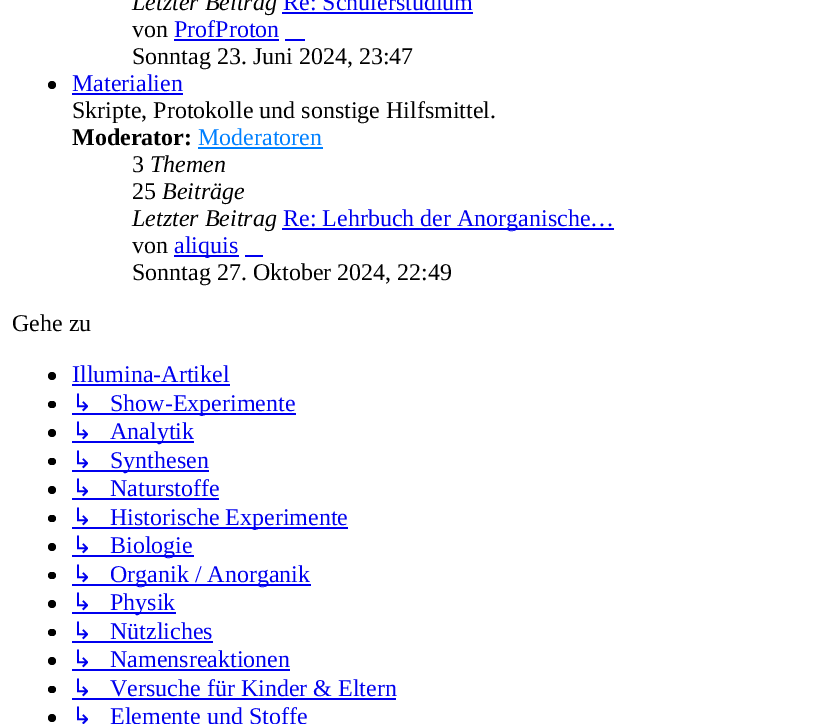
%!PS
<< /PageSize [827 724] >> setpagedevice
/roundrect { 5 dict begin { /r /h /w /y /x } { exch def } forall
  x r add y moveto x w add y 2 copy h add r arct x w add y h add x 1 index r arct
  x y h add x y r arct x y 2 copy exch w add exch r arct closepath end } def
0 724 translate 1 -1 scale
4 setmiterlimit
1 setgray
0 0 827 724 rectfill
/LiberationSerif-Italic [24 0 0 -24 0 0] selectfont
0 setgray
132 10 moveto (Letzter Beitrag) show
/LiberationSerif-Regular [24 0 0 -24 0 0] selectfont
0 0 0.933 setrgbcolor
283 10 moveto (Re: Schülerstudium) show
282 12 191 2 rectfill
0 setgray
132 37 moveto (von) show
0 0 0.933 setrgbcolor
174 37 moveto (ProfProton) show
174 39 105 2 rectfill
285 39 20 2 rectfill
0 setgray
132 64 moveto (Sonntag 23. Juni 2024, 23:47) show
newpath 52 85 4 0 360 arc closepath fill
0 0 0.933 setrgbcolor
72 91 moveto (Materialien) show
72 93 111 2 rectfill
0 setgray
72 118 moveto (Skripte, Protokolle und sonstige Hilfsmittel.) show
/LiberationSerif-Bold [24 0 0 -24 0 0] selectfont
72 145 moveto (Moderator:) show
/LiberationSerif-Regular [24 0 0 -24 0 0] selectfont
0 0.502 1 setrgbcolor
198 145 moveto (Moderatoren) show
198 147 125 2 rectfill
0 setgray
132 172 moveto (3) show
/LiberationSerif-Italic [24 0 0 -24 0 0] selectfont
150 172 moveto (Themen) show
/LiberationSerif-Regular [24 0 0 -24 0 0] selectfont
132 199 moveto (25) show
/LiberationSerif-Italic [24 0 0 -24 0 0] selectfont
162 199 moveto (Beiträge) show
132 226 moveto (Letzter Beitrag) show
0 0 0.933 setrgbcolor
282 228 332 2 rectfill
/LiberationSerif-Regular [24 0 0 -24 0 0] selectfont
283 226 moveto (Re: Lehrbuch der Anorganische…) show
0 setgray
132 253 moveto (von) show
0 0 0.933 setrgbcolor
174 255 65 2 rectfill
174 253 moveto (aliquis) show
245 255 18 2 rectfill
0 setgray
132 280 moveto (Sonntag 27. Oktober 2024, 22:49) show
12 331 moveto (Gehe zu) show
newpath 52 376 4 0 360 arc closepath fill
0 0 0.933 setrgbcolor
72 382 moveto (Illumina-Artikel) show
72 384 158 2 rectfill
0 setgray
48 401 8 7 3.5 roundrect fill
/DejaVuSans-Regular [24 0 0 -24 0 0] selectfont
0 0 0.933 setrgbcolor
72 411 moveto (↳) show
72 413 224 2 rectfill
/LiberationSerif-Regular [24 0 0 -24 0 0] selectfont
110 411 moveto (Show-Experimente) show
0 setgray
newpath 52 433 4 0 360 arc closepath fill
/DejaVuSans-Regular [24 0 0 -24 0 0] selectfont
0 0 0.933 setrgbcolor
72 439 moveto (↳) show
72 441 122 2 rectfill
/LiberationSerif-Regular [24 0 0 -24 0 0] selectfont
110 439 moveto (Analytik) show
0 setgray
48 458 8 7 3.5 roundrect fill
/DejaVuSans-Regular [24 0 0 -24 0 0] selectfont
0 0 0.933 setrgbcolor
72 468 moveto (↳) show
72 470 137 2 rectfill
/LiberationSerif-Regular [24 0 0 -24 0 0] selectfont
110 468 moveto (Synthesen) show
0 setgray
newpath 52 490 4 0 360 arc closepath fill
/DejaVuSans-Regular [24 0 0 -24 0 0] selectfont
0 0 0.933 setrgbcolor
72 496 moveto (↳) show
/LiberationSerif-Regular [24 0 0 -24 0 0] selectfont
110 496 moveto (Naturstoffe) show
72 498 147 2 rectfill
0 setgray
48 515 8 7 3.5 roundrect fill
/DejaVuSans-Regular [24 0 0 -24 0 0] selectfont
0 0 0.933 setrgbcolor
72 525 moveto (↳) show
72 527 276 2 rectfill
/LiberationSerif-Regular [24 0 0 -24 0 0] selectfont
110 525 moveto (Historische Experimente) show
0 setgray
newpath 52 547 4 0 360 arc closepath fill
/DejaVuSans-Regular [24 0 0 -24 0 0] selectfont
0 0 0.933 setrgbcolor
72 553 moveto (↳) show
72 555 122 2 rectfill
/LiberationSerif-Regular [24 0 0 -24 0 0] selectfont
110 553 moveto (Biologie) show
0 setgray
48 572 8 7 3.5 roundrect fill
/DejaVuSans-Regular [24 0 0 -24 0 0] selectfont
0 0 0.933 setrgbcolor
72 582 moveto (↳) show
72 584 239 2 rectfill
/LiberationSerif-Regular [24 0 0 -24 0 0] selectfont
110 582 moveto (Organik / Anorganik) show
0 setgray
newpath 52 604 4 0 360 arc closepath fill
/DejaVuSans-Regular [24 0 0 -24 0 0] selectfont
0 0 0.933 setrgbcolor
72 610 moveto (↳) show
72 612 104 2 rectfill
/LiberationSerif-Regular [24 0 0 -24 0 0] selectfont
110 610 moveto (Physik) show
0 setgray
48 629 8 7 3.5 roundrect fill
/DejaVuSans-Regular [24 0 0 -24 0 0] selectfont
0 0 0.933 setrgbcolor
72 639 moveto (↳) show
/LiberationSerif-Regular [24 0 0 -24 0 0] selectfont
110 639 moveto (Nützliches) show
72 641 141 2 rectfill
0 setgray
newpath 52 661 4 0 360 arc closepath fill
/DejaVuSans-Regular [24 0 0 -24 0 0] selectfont
0 0 0.933 setrgbcolor
72 667 moveto (↳) show
/LiberationSerif-Regular [24 0 0 -24 0 0] selectfont
110 667 moveto (Namensreaktionen) show
72 669 218 2 rectfill
0 setgray
48 686 8 7 3.5 roundrect fill
/DejaVuSans-Regular [24 0 0 -24 0 0] selectfont
0 0 0.933 setrgbcolor
72 696 moveto (↳) show
/LiberationSerif-Regular [24 0 0 -24 0 0] selectfont
110 696 moveto (Versuche für Kinder & Eltern) show
72 698 324 2 rectfill
0 setgray
newpath 52 718 4 0 360 arc closepath fill
/DejaVuSans-Regular [24 0 0 -24 0 0] selectfont
0 0 0.933 setrgbcolor
72 724 moveto (↳) show
/LiberationSerif-Regular [24 0 0 -24 0 0] selectfont
110 724 moveto (Elemente und Stoffe) show
showpage
